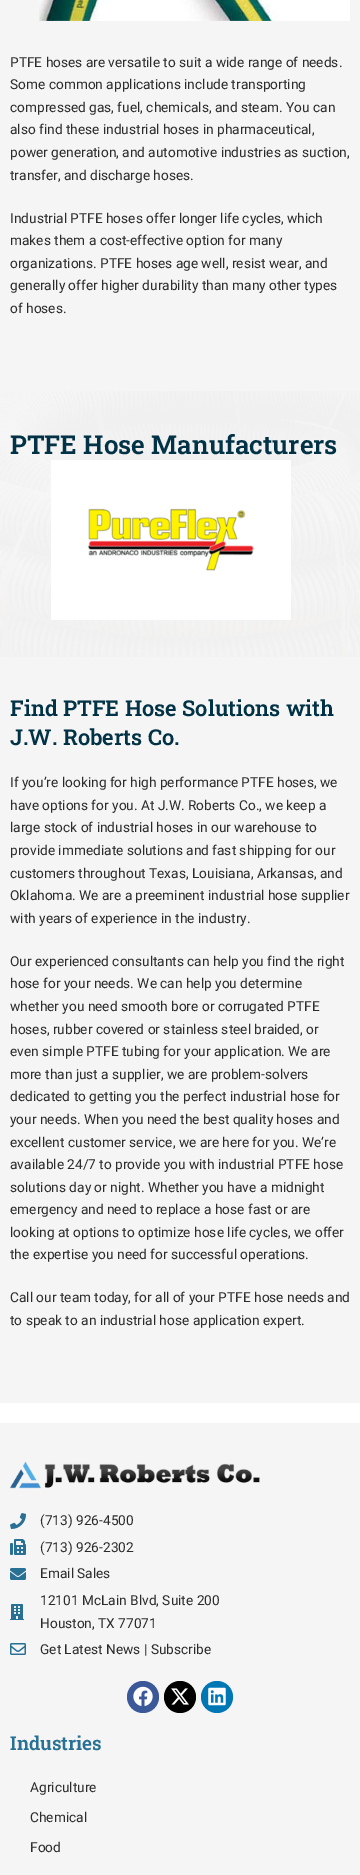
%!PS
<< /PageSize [360 1875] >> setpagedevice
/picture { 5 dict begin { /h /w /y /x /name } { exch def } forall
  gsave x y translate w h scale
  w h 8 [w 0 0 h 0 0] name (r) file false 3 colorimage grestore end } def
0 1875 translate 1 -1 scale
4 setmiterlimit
0.961 setgray
0 0 360 1875 rectfill
(img1.rgb) 39 0 311 21 picture
/Roboto-Regular [13.7 0 0 -13.7 0 0] selectfont
0.169 setgray
10 67 moveto (PTFE hoses are versatile to suit a wide range of needs.) show
10 89 moveto (Some common applications include transporting) show
10 112 moveto (compressed gas, fuel, chemicals, and steam. You can) show
10 134 moveto (also find these industrial hoses in pharmaceutical,) show
10 157 moveto (power generation, and automotive industries as suction,) show
10 180 moveto (transfer, and discharge hoses.) show
10 223 moveto (Industrial PTFE hoses offer longer life cycles, which) show
10 245 moveto (makes them a cost-effective option for many) show
10 268 moveto (organizations. PTFE hoses age well, resist wear, and) show
10 290 moveto (generally offer higher durability than many other types) show
10 313 moveto (of hoses.) show
(img2.rgb) 0 391 360 266 picture
/RobotoSlab-SemiBold [26 0 0 -26 0 0] selectfont
0.008 0.196 0.275 setrgbcolor
10 454 moveto (PTFE Hose Manufacturers) show
(img3.rgb) 51 460 240 160 picture
/RobotoSlab-SemiBold [21.9 0 0 -21.9 0 0] selectfont
10 716 moveto (Find PTFE Hose Solutions with) show
10 745 moveto (J.W. Roberts Co.) show
/Roboto-Regular [13.7 0 0 -13.7 0 0] selectfont
0.169 setgray
10 787 moveto (If you’re looking for high performance PTFE hoses, we) show
10 810 moveto (have options for you. At J.W. Roberts Co., we keep a) show
10 832 moveto (large stock of industrial hoses in our warehouse to) show
10 855 moveto (provide immediate solutions and fast shipping for our) show
10 878 moveto (customers throughout Texas, Louisiana, Arkansas, and) show
10 900 moveto (Oklahoma. We are a preeminent industrial hose supplier) show
10 923 moveto (with years of experience in the industry.) show
10 966 moveto (Our experienced consultants can help you find the right) show
10 988 moveto (hose for your needs. We can help you determine) show
10 1011 moveto (whether you need smooth bore or corrugated PTFE) show
10 1034 moveto (hoses, rubber covered or stainless steel braided, or) show
10 1056 moveto (even simple PTFE tubing for your application. We are) show
10 1079 moveto (more than just a supplier, we are problem-solvers) show
10 1101 moveto (dedicated to getting you the perfect industrial hose for) show
10 1124 moveto (your needs. When you need the best quality hoses and) show
10 1147 moveto (excellent customer service, we are here for you. We’re) show
10 1169 moveto (available 24/7 to provide you with industrial PTFE hose) show
10 1192 moveto (solutions day or night. Whether you have a midnight) show
10 1214 moveto (emergency and need to replace a hose fast or are) show
10 1237 moveto (looking at options to optimize hose life cycles, we offer) show
10 1259 moveto (the expertise you need for successful operations.) show
10 1302 moveto (Call our team today, for all of your PTFE hose needs and) show
10 1325 moveto (to speak to an industrial hose application expert.) show
1 setgray
0 1403 360 20 rectfill
(img4.rgb) 10 1461 250 28 picture
(img5.rgb) 10 1513 16 16 picture
0.169 setgray
40 1525 moveto (\(713\) 926-4500) show
(img6.rgb) 10 1539 16 16 picture
40 1552 moveto (\(713\) 926-2302) show
(img7.rgb) 10 1568 16 12 picture
40 1578 moveto (Email Sales) show
(img8.rgb) 10 1604 14 16 picture
40 1605 moveto (12101 McLain Blvd, Suite 200) show
40 1628 moveto (Houston, TX 77071) show
(img9.rgb) 10 1643 16 12 picture
40 1654 moveto (Get Latest News | Subscribe) show
0.231 0.349 0.596 setrgbcolor
newpath 143 1697 16 0 360 arc closepath fill
(img10.rgb) 133 1686 20 20 picture
0 setgray
newpath 180 1697 16 0 360 arc closepath fill
(img11.rgb) 171 1688 18 17 picture
0 0.467 0.71 setrgbcolor
newpath 217 1697 16 0 360 arc closepath fill
(img12.rgb) 208 1687 18 19 picture
/RobotoSlab-SemiBold [19 0 0 -19 0 0] selectfont
0.157 0.439 0.58 setrgbcolor
10 1750 moveto (Industries) show
/Roboto-Regular [13.7 0 0 -13.7 0 0] selectfont
0.169 setgray
30 1792 moveto (Agriculture) show
30 1822 moveto (Chemical) show
30 1852 moveto (Food) show
showpage
